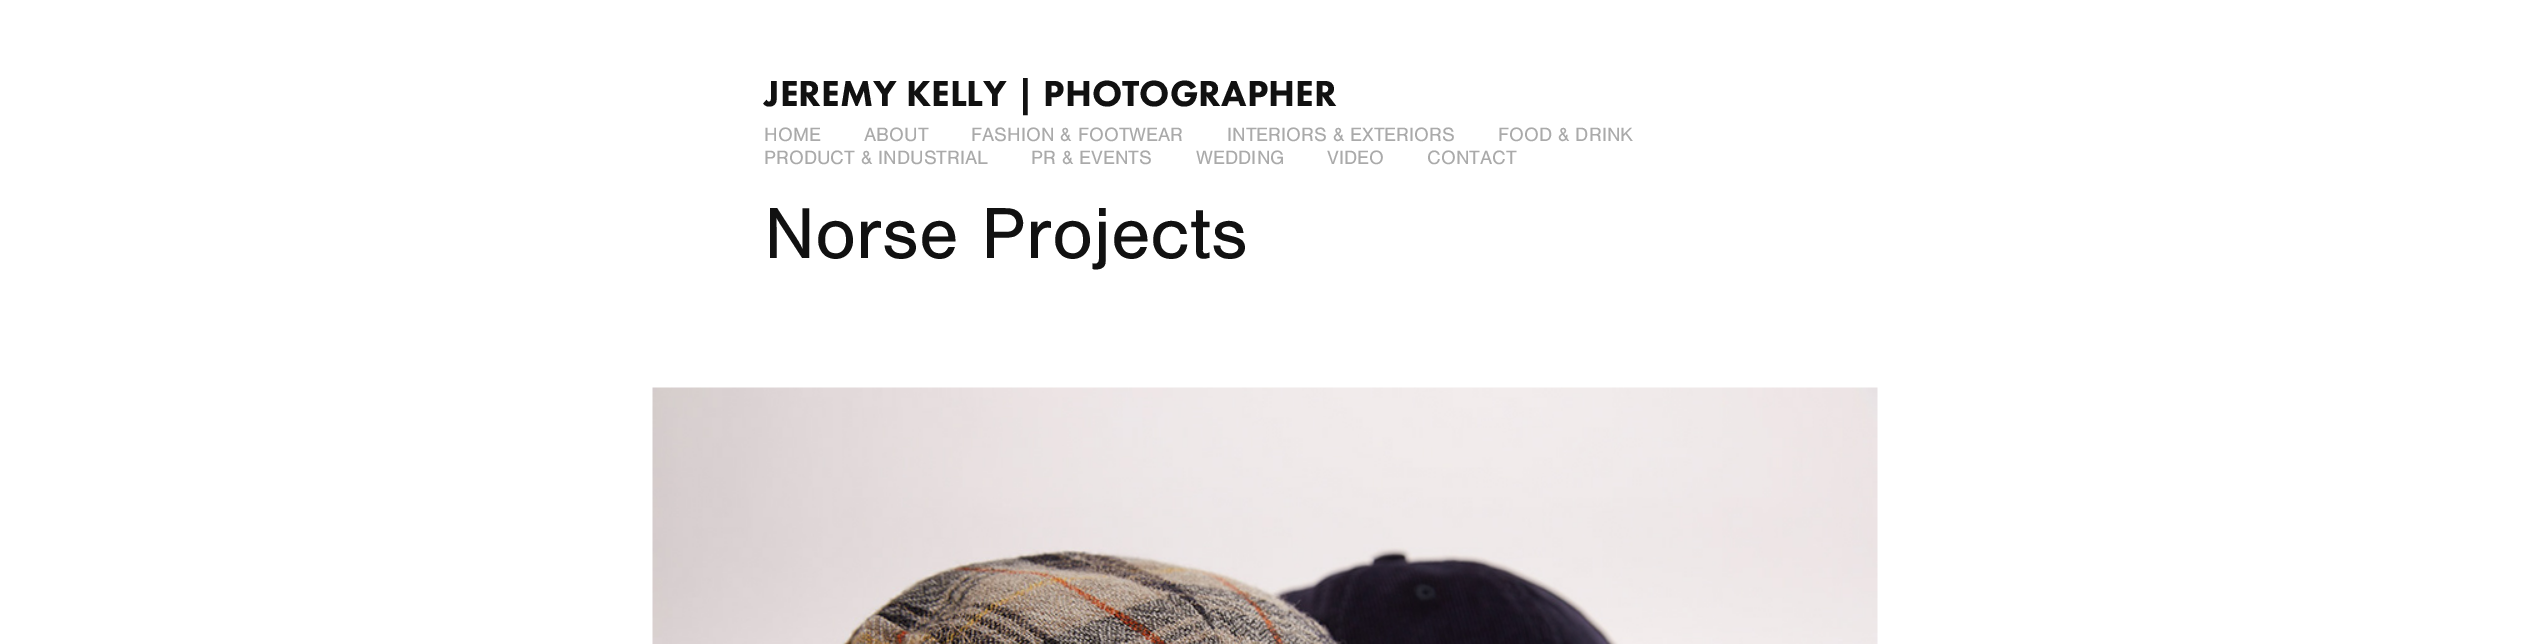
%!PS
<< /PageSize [2528 644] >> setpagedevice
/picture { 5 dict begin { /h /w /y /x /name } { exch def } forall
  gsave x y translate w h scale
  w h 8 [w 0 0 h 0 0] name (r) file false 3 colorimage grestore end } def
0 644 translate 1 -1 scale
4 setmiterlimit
1 setgray
0 0 2528 644 rectfill
/FuturaPT-Black [37.5 0 0 -37.5 0 0] selectfont
0.067 setgray
764 106 moveto (JEREMY KELLY | PHOTOGRAPHER) show
/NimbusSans-Regular [20 0 0 -20 0 0] selectfont
0.667 setgray
764 141 moveto (HOME) show
864 141 moveto (ABOUT) show
971 141 moveto (FASHION & FOOTWEAR) show
1227 141 moveto (INTERIORS & EXTERIORS) show
1498 141 moveto (FOOD & DRINK) show
764 164 moveto (PRODUCT & INDUSTRIAL) show
1031 164 moveto (PR & EVENTS) show
1196 164 moveto (WEDDING) show
1327 164 moveto (VIDEO) show
1427 164 moveto (CONTACT) show
/NimbusSans-Regular [75 0 0 -75 0 0] selectfont
0.067 setgray
764 258 moveto (Norse Projects) show
(img1.rgb) 652 387 1226 257 picture
showpage
